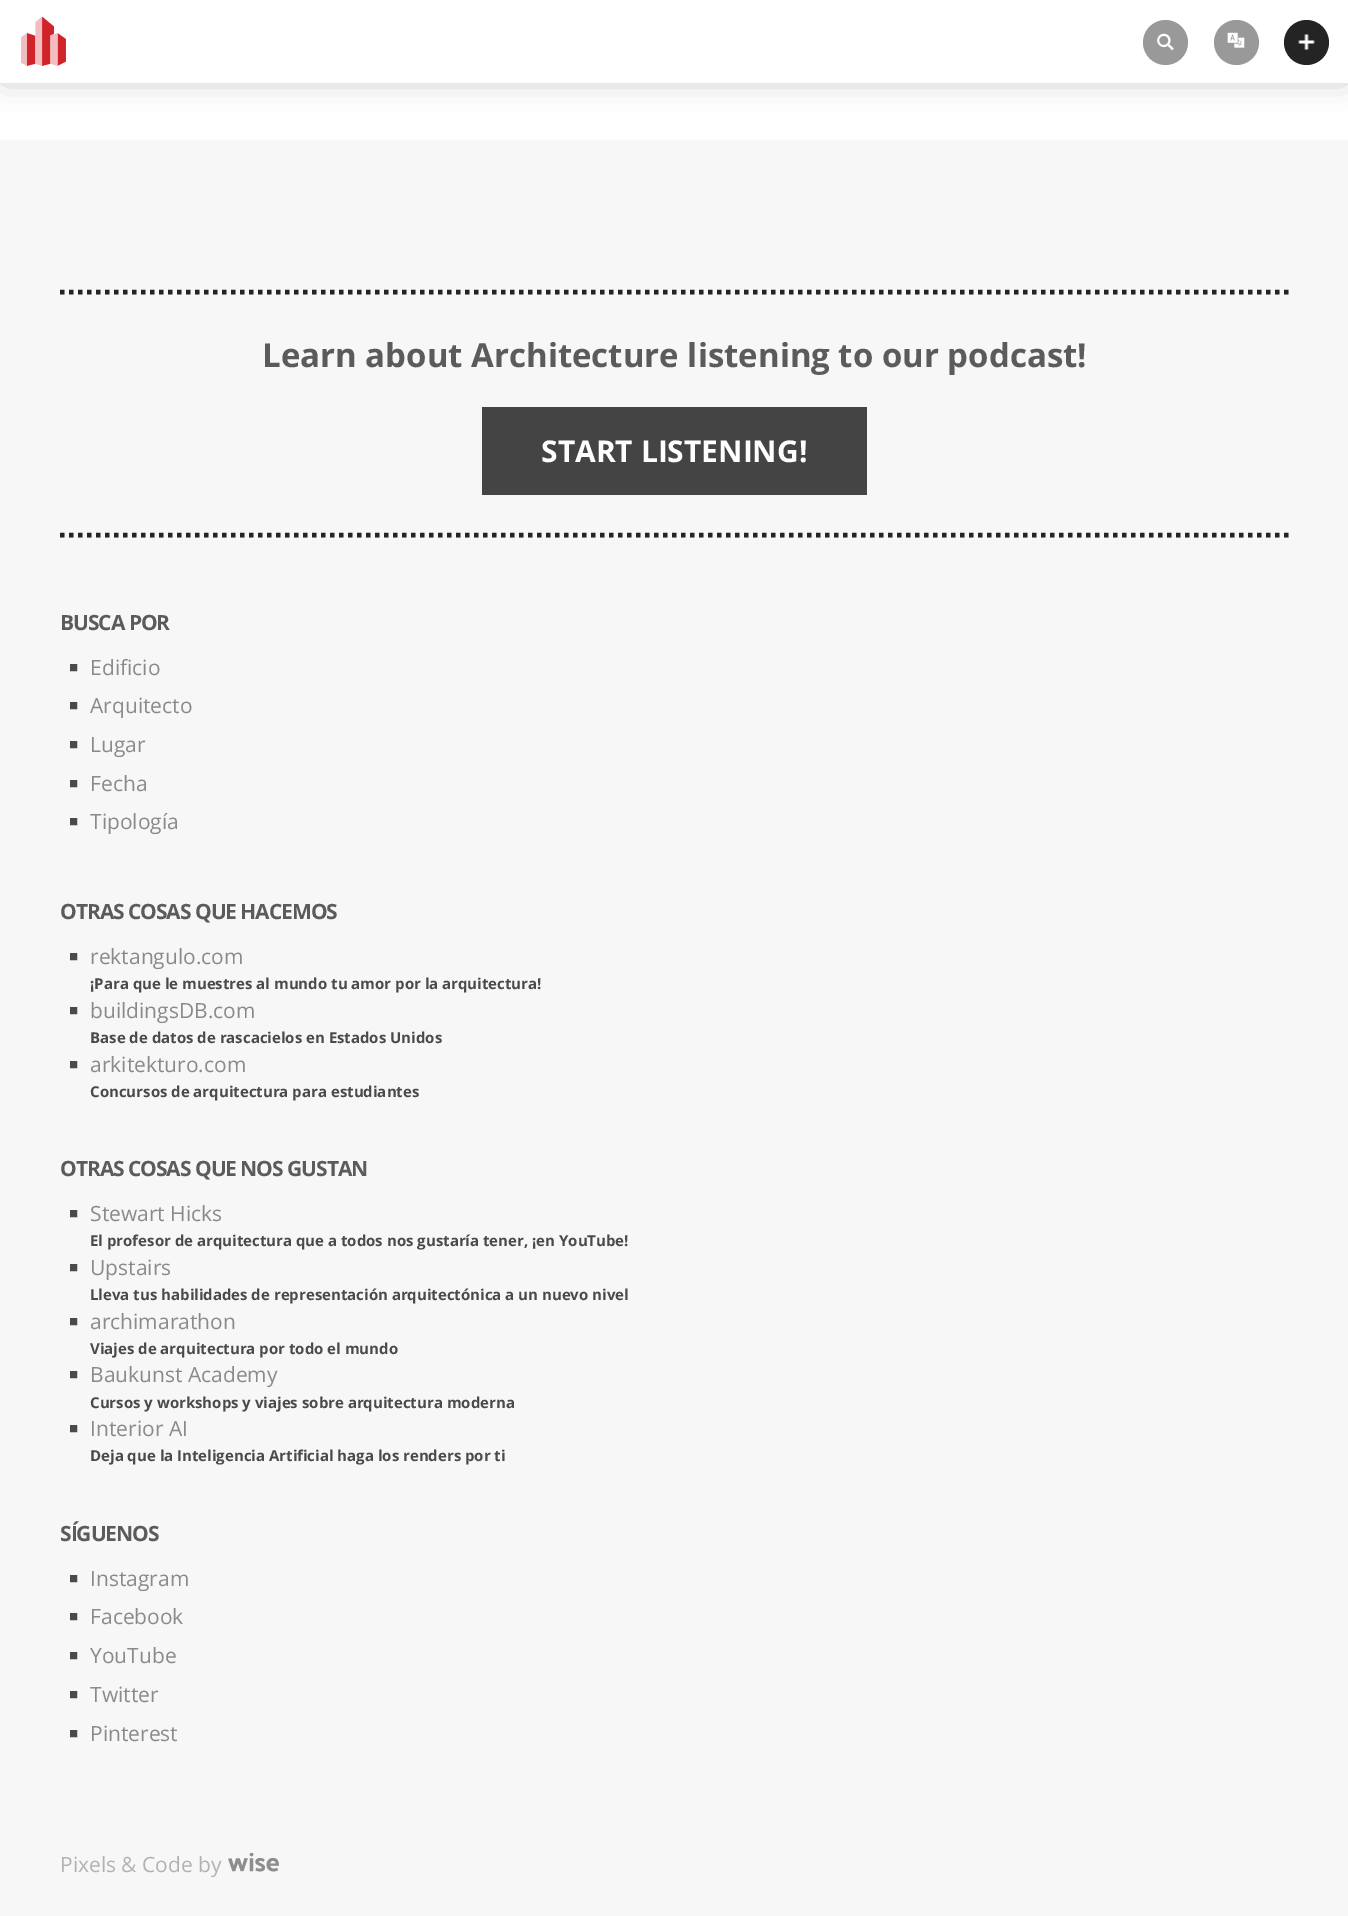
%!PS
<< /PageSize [1348 1916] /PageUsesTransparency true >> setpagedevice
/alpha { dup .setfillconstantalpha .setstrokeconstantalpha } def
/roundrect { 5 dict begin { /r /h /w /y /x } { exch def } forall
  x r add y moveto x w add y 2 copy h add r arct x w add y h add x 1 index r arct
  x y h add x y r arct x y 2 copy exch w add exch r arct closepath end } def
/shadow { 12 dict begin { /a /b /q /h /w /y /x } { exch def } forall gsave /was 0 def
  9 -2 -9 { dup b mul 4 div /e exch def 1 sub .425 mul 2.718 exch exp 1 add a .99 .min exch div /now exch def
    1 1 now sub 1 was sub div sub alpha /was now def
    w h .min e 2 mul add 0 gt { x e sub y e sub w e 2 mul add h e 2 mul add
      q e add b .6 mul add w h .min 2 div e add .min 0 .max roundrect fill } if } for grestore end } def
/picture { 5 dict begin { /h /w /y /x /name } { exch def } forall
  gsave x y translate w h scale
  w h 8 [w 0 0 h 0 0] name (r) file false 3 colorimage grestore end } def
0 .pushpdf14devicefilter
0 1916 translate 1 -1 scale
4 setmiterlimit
0.969 setgray
0 0 1348 1916 rectfill
1 setgray
0 83 1348 57 rectfill
0 setgray
5 5 1339 73 0 15 0.3 shadow
1 setgray
0 0 1348 83 rectfill
(img1.rgb) 21 17 45 49 picture
0.6 setgray
newpath 1165.5 42.5 22.5 0 360 arc closepath fill
(img2.rgb) 1157 33 17 18 picture
newpath 1236.5 42.5 22.5 0 360 arc closepath fill
(img3.rgb) 1227 32 18 16 picture
0.141 setgray
newpath 1306.5 42.5 22.5 0 360 arc closepath fill
(img4.rgb) 1298 34 17 16 picture
4.5 setlinewidth
[4.5 4.5] 0 setdash
newpath 60 292 moveto 1288.5 292 lineto stroke
newpath 60 535 moveto 1288.5 535 lineto stroke
/OpenSans-Bold [33 0 0 -33 0 0] selectfont
0.357 setgray
262 367 moveto (Learn about Architecture listening to our podcast!) show
0.267 setgray
482 407 385 88 rectfill
/OpenSans-Bold [30 0 0 -30 0 0] selectfont
0.996 setgray
541 462 moveto (START LISTENING!) show
/OpenSans-Bold [21 0 0 -21 0 0] selectfont
0.357 setgray
60 630 moveto -1.05 0 (BUSCA POR) ashow
/LiberationSans-Regular [15 0 0 -15 0 0] selectfont
0.29 setgray
69 672 moveto (■) show
/OpenSans-Regular [21 0 0 -21 0 0] selectfont
0.541 setgray
90 675 moveto (Edificio) show
/LiberationSans-Regular [15 0 0 -15 0 0] selectfont
0.29 setgray
69 710 moveto (■) show
/OpenSans-Regular [21 0 0 -21 0 0] selectfont
0.541 setgray
90 713 moveto (Arquitecto) show
/LiberationSans-Regular [15 0 0 -15 0 0] selectfont
0.29 setgray
69 749 moveto (■) show
/OpenSans-Regular [21 0 0 -21 0 0] selectfont
0.541 setgray
90 752 moveto (Lugar) show
/LiberationSans-Regular [15 0 0 -15 0 0] selectfont
0.29 setgray
69 788 moveto (■) show
/OpenSans-Regular [21 0 0 -21 0 0] selectfont
0.541 setgray
90 791 moveto (Fecha) show
/LiberationSans-Regular [15 0 0 -15 0 0] selectfont
0.29 setgray
69 826 moveto (■) show
/OpenSans-Regular [21 0 0 -21 0 0] selectfont
0.541 setgray
90 829 moveto (Tipología) show
/OpenSans-Bold [21 0 0 -21 0 0] selectfont
0.357 setgray
60 919 moveto -1.05 0 (OTRAS COSAS QUE HACEMOS) ashow
/LiberationSans-Regular [15 0 0 -15 0 0] selectfont
0.29 setgray
69 961 moveto (■) show
/OpenSans-Regular [21 0 0 -21 0 0] selectfont
0.541 setgray
90 964 moveto (rektangulo.com) show
/OpenSans-Bold [15 0 0 -15 0 0] selectfont
0.29 setgray
90 989 moveto (¡Para que le muestres al mundo tu amor por la arquitectura!) show
/LiberationSans-Regular [15 0 0 -15 0 0] selectfont
69 1015 moveto (■) show
/OpenSans-Regular [21 0 0 -21 0 0] selectfont
0.541 setgray
90 1018 moveto (buildingsDB.com) show
/OpenSans-Bold [15 0 0 -15 0 0] selectfont
0.29 setgray
90 1043 moveto (Base de datos de rascacielos en Estados Unidos) show
/LiberationSans-Regular [15 0 0 -15 0 0] selectfont
69 1069 moveto (■) show
/OpenSans-Regular [21 0 0 -21 0 0] selectfont
0.541 setgray
90 1072 moveto (arkitekturo.com) show
/OpenSans-Bold [15 0 0 -15 0 0] selectfont
0.29 setgray
90 1097 moveto (Concursos de arquitectura para estudiantes) show
/OpenSans-Bold [21 0 0 -21 0 0] selectfont
0.357 setgray
60 1176 moveto -1.05 0 (OTRAS COSAS QUE NOS GUSTAN) ashow
/LiberationSans-Regular [15 0 0 -15 0 0] selectfont
0.29 setgray
69 1218 moveto (■) show
/OpenSans-Regular [21 0 0 -21 0 0] selectfont
0.541 setgray
90 1221 moveto (Stewart Hicks) show
/OpenSans-Bold [15 0 0 -15 0 0] selectfont
0.29 setgray
90 1246 moveto (El profesor de arquitectura que a todos nos gustaría tener, ¡en YouTube!) show
/LiberationSans-Regular [15 0 0 -15 0 0] selectfont
69 1272 moveto (■) show
/OpenSans-Regular [21 0 0 -21 0 0] selectfont
0.541 setgray
90 1275 moveto (Upstairs) show
/OpenSans-Bold [15 0 0 -15 0 0] selectfont
0.29 setgray
90 1300 moveto (Lleva tus habilidades de representación arquitectónica a un nuevo nivel) show
/LiberationSans-Regular [15 0 0 -15 0 0] selectfont
69 1326 moveto (■) show
/OpenSans-Regular [21 0 0 -21 0 0] selectfont
0.541 setgray
90 1329 moveto (archimarathon) show
/OpenSans-Bold [15 0 0 -15 0 0] selectfont
0.29 setgray
90 1354 moveto (Viajes de arquitectura por todo el mundo) show
/LiberationSans-Regular [15 0 0 -15 0 0] selectfont
69 1379 moveto (■) show
/OpenSans-Regular [21 0 0 -21 0 0] selectfont
0.541 setgray
90 1382 moveto (Baukunst Academy) show
/OpenSans-Bold [15 0 0 -15 0 0] selectfont
0.29 setgray
90 1408 moveto (Cursos y workshops y viajes sobre arquitectura moderna) show
/LiberationSans-Regular [15 0 0 -15 0 0] selectfont
69 1433 moveto (■) show
/OpenSans-Regular [21 0 0 -21 0 0] selectfont
0.541 setgray
90 1436 moveto (Interior AI) show
/OpenSans-Bold [15 0 0 -15 0 0] selectfont
0.29 setgray
90 1461 moveto (Deja que la Inteligencia Artificial haga los renders por ti) show
/OpenSans-Bold [21 0 0 -21 0 0] selectfont
0.357 setgray
60 1541 moveto -1.05 0 (SÍGUENOS) ashow
/LiberationSans-Regular [15 0 0 -15 0 0] selectfont
0.29 setgray
69 1583 moveto (■) show
/OpenSans-Regular [21 0 0 -21 0 0] selectfont
0.541 setgray
90 1586 moveto (Instagram) show
/LiberationSans-Regular [15 0 0 -15 0 0] selectfont
0.29 setgray
69 1621 moveto (■) show
/OpenSans-Regular [21 0 0 -21 0 0] selectfont
0.541 setgray
90 1624 moveto (Facebook) show
/LiberationSans-Regular [15 0 0 -15 0 0] selectfont
0.29 setgray
69 1660 moveto (■) show
/OpenSans-Regular [21 0 0 -21 0 0] selectfont
0.541 setgray
90 1663 moveto (YouTube) show
/LiberationSans-Regular [15 0 0 -15 0 0] selectfont
0.29 setgray
69 1699 moveto (■) show
/OpenSans-Regular [21 0 0 -21 0 0] selectfont
0.541 setgray
90 1702 moveto (Twitter) show
/LiberationSans-Regular [15 0 0 -15 0 0] selectfont
0.29 setgray
69 1738 moveto (■) show
/OpenSans-Regular [21 0 0 -21 0 0] selectfont
0.541 setgray
90 1741 moveto (Pinterest) show
0.698 setgray
60 1872 moveto (Pixels & Code by) show
(img5.rgb) 228 1853 51 19 picture
.poppdf14devicefilter showpage
